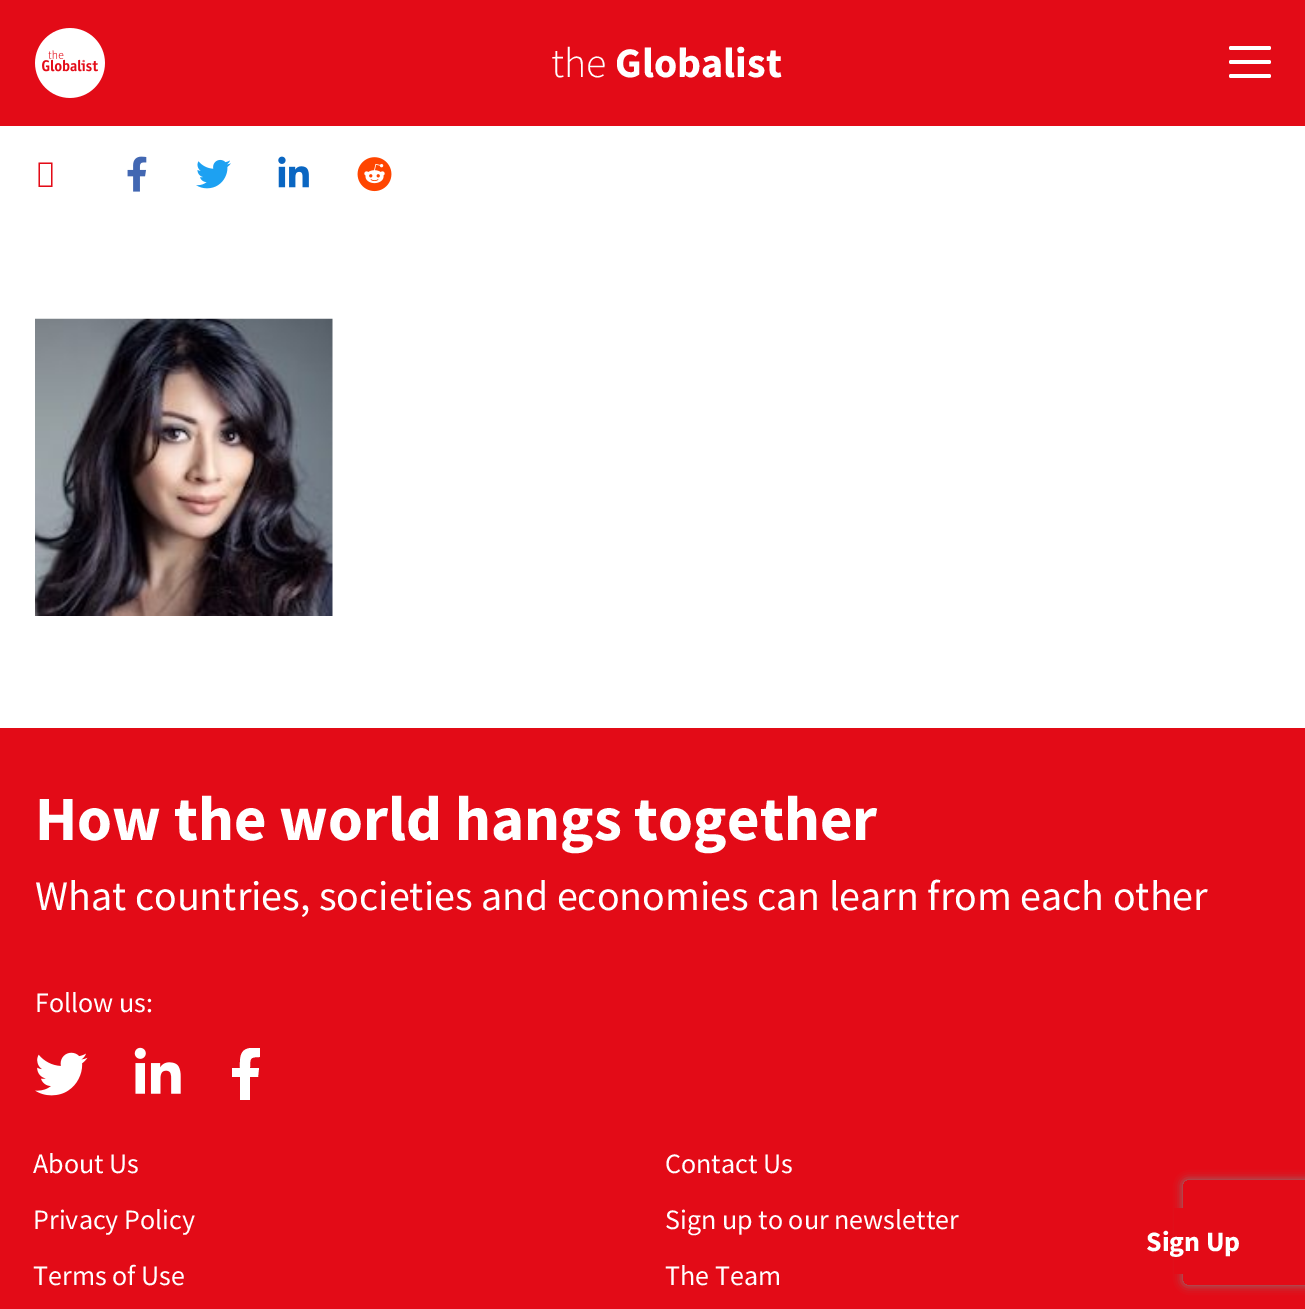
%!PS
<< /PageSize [1305 1309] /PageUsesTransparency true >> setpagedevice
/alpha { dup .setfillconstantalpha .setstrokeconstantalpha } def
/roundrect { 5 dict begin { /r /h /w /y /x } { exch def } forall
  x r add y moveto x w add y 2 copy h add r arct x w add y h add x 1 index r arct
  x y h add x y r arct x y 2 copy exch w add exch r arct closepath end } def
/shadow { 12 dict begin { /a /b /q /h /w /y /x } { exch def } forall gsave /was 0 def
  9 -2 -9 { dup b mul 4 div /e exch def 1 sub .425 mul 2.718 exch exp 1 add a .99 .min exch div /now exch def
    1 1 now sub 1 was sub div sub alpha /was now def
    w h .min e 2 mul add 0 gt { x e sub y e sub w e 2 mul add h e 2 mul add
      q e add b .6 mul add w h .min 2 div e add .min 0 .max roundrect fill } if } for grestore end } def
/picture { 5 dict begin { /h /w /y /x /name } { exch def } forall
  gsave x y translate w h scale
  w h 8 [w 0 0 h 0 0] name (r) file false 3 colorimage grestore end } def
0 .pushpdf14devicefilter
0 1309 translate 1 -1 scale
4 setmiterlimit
1 setgray
0 0 1305 1309 rectfill
0.89 0.043 0.09 setrgbcolor
0 0 1305 126 rectfill
(img1.rgb) 35 28 70 70 picture
/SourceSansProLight-Light [42 0 0 -42 0 0] selectfont
1 setgray
551 77 moveto (the) show
/SourceSansPro-Bold [42 0 0 -42 0 0] selectfont
615 77 moveto (Globalist) show
1229 60 42 4 2 roundrect fill
1229 46 42 4 2 roundrect fill
1229 74 42 4 2 roundrect fill
0.89 0.043 0.09 setrgbcolor
newpath 38.5 187 moveto 38.5 162.5 lineto 52.5 162.5 lineto 52.5 187 lineto closepath 40 185.5 moveto 51 185.5 lineto 51 164 lineto 40 164 lineto closepath fill
(img2.rgb) 127 156 20 36 picture
(img3.rgb) 196 159 35 30 picture
(img4.rgb) 278 156 31 32 picture
(img5.rgb) 357 157 35 35 picture
(img6.rgb) 35 318 298 298 picture
0 728 1305 581 rectfill
/SourceSansPro-Bold [63 0 0 -63 0 0] selectfont
1 setgray
35 840 moveto (How the world hangs together) show
/SourceSansPro-Regular [42 0 0 -42 0 0] selectfont
35 910 moveto (What countries, societies and economies can learn from each other) show
/SourceSansPro-Regular [28 0 0 -28 0 0] selectfont
35 1012 moveto (Follow us:) show
(img7.rgb) 35 1052 53 44 picture
(img8.rgb) 134 1047 47 47 picture
newpath 258 1077 moveto 259 1068 lineto 250 1068 lineto 250 1058 250 1057 260 1057 curveto 260 1048 lineto 251 1048 lineto 239 1049 240 1059 240 1068 curveto 232 1068 lineto 232 1077 lineto 240 1077 lineto 240 1100 lineto 250 1100 lineto 250 1077 lineto closepath fill
33 1173 moveto (About Us) show
665 1173 moveto (Contact Us) show
33 1229 moveto (Privacy Policy) show
665 1229 moveto (Sign up to our newsletter) show
33 1285 moveto (Terms of Use) show
665 1285 moveto (The Team) show
gsave
newpath 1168 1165 moveto 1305 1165 lineto 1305 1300 lineto 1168 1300 lineto closepath 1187 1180 moveto 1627 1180 lineto 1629 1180 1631 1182 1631 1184 curveto 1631 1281 lineto 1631 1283 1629 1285 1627 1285 curveto 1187 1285 lineto 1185 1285 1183 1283 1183 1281 curveto 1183 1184 lineto 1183 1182 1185 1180 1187 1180 curveto closepath eoclip newpath
0.502 setgray
1183 1180 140 105 4 4.5 1 shadow
grestore
0.89 0.043 0.09 setrgbcolor
1174 1208 9 66 rectfill
/SourceSansPro-Bold [28 0 0 -28 0 0] selectfont
1 setgray
1146 1251 moveto (Sign Up) show
.poppdf14devicefilter showpage
